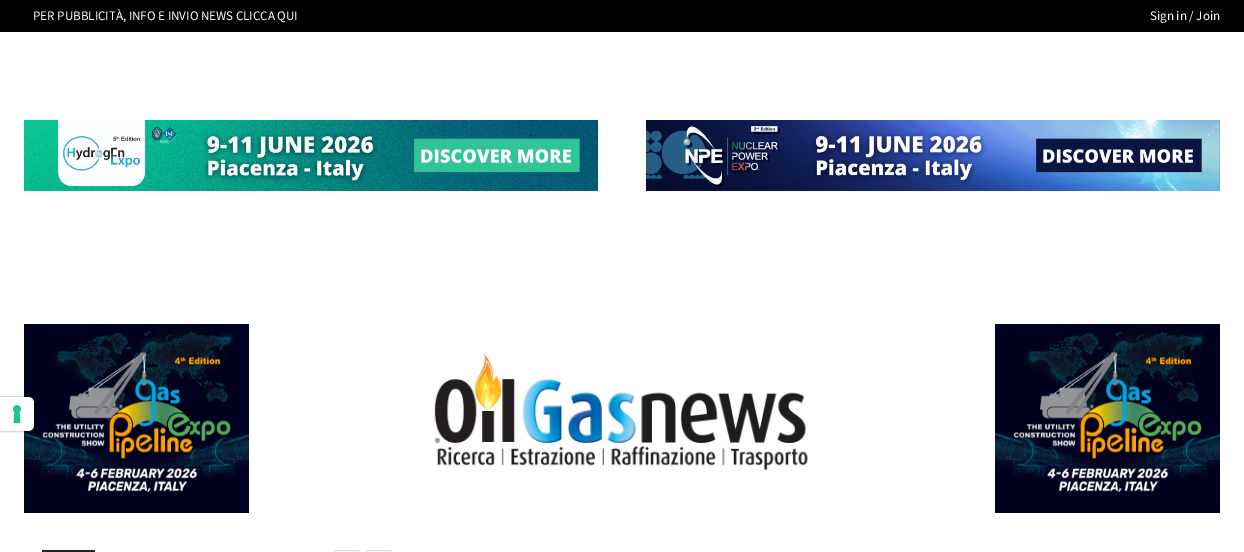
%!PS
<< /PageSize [1244 552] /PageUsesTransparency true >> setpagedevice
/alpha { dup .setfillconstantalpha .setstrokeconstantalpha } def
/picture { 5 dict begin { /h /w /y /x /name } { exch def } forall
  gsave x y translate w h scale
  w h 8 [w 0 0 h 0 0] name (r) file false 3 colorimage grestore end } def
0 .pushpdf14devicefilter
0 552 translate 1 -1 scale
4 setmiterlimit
1 setgray
0 0 1244 552 rectfill
0 setgray
0 0 1244 32 rectfill
/SourceSansPro-Regular [13 0 0 -13 0 0] selectfont
1 setgray
33 20 moveto (PER PUBBLICITÀ, INFO E INVIO NEWS CLICCA QUI) show
1150 20 moveto (Sign in / Join) show
(img1.rgb) 24 120 574 72 picture
(img2.rgb) 597 125 1 63 picture
(img3.rgb) 646 120 574 72 picture
(img4.rgb) 1219 120 1 71 picture
(img5.rgb) 24 324 225 189 picture
(img6.rgb) 434 352 374 119 picture
(img7.rgb) 995 324 225 189 picture
0.133 setgray
42 550 53 2 rectfill
0.863 setgray
334.5 550.5 24 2 rectstroke
366.5 550.5 24 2 rectstroke
0.15 alpha
0 setgray
newpath -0.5 396.5 moveto 28 396.5 lineto 31.5 396.5 34.5 399.5 34.5 403 curveto 34.5 425 lineto 34.5 428.5 31.5 431.5 28 431.5 curveto -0.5 431.5 lineto closepath stroke
1 alpha
1 setgray
newpath 0 397 moveto 28 397 lineto 31.5 397 34 399.5 34 403 curveto 34 425 lineto 34 428.5 31.5 431 28 431 curveto 0 431 lineto closepath fill
(img8.rgb) 13 405 8 18 picture
.poppdf14devicefilter showpage
